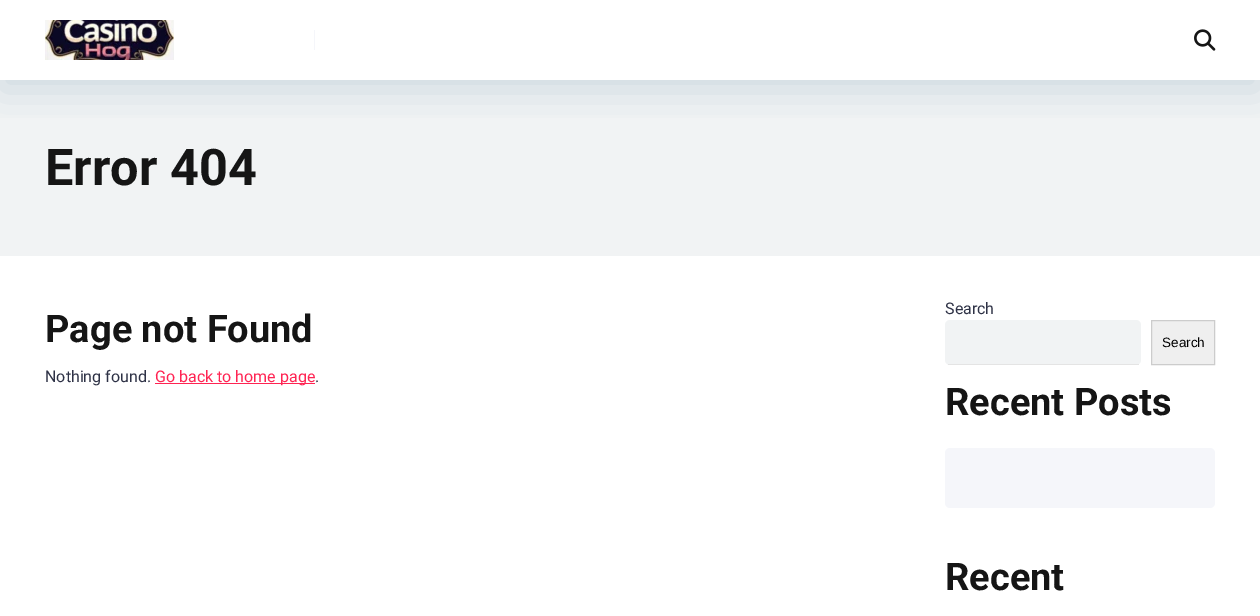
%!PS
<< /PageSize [1260 616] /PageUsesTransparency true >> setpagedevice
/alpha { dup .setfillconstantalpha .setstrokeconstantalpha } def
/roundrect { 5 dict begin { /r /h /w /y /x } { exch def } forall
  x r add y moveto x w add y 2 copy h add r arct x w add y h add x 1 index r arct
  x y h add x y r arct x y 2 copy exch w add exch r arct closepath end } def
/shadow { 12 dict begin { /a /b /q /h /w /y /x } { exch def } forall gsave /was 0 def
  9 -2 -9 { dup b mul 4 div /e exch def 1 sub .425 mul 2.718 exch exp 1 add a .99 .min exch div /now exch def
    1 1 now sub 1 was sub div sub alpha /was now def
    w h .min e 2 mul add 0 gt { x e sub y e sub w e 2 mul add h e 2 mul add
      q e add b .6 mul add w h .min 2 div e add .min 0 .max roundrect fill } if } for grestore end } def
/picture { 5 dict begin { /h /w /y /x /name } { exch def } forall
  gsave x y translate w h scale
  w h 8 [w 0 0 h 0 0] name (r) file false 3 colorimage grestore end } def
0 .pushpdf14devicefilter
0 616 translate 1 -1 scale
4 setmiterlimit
1 setgray
0 0 1260 616 rectfill
0.945 0.953 0.957 setrgbcolor
0 80 1260 176 rectfill
gsave
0 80 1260 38 rectclip
0.427 0.553 0.678 setrgbcolor
0 10 1260 80 0 20 0.25 shadow
grestore
(img1.rgb) 45 20 129 40 picture
0.961 0.965 0.98 setrgbcolor
314 30 1 20 rectfill
(img2.rgb) 1194 29 22 22 picture
/Roboto-Bold [50.5 0 0 -50.5 0 0] selectfont
0.082 setgray
45 185 moveto (Error 404) show
/Roboto-Bold [38 0 0 -38 0 0] selectfont
45 342 moveto (Page not Found) show
/Roboto-Regular [16 0 0 -16 0 0] selectfont
0.18 0.196 0.275 setrgbcolor
45 382 moveto (Nothing found.) show
1 0.141 0.325 setrgbcolor
155 383 160 1 rectfill
155 382 moveto (Go back to home page) show
0.18 0.196 0.275 setrgbcolor
315 382 moveto (.) show
945 314 moveto (Search) show
0.945 0.953 0.957 setrgbcolor
945 320 196 45 5 roundrect fill
0.894 setgray
948 364 191 1 rectfill
0.937 setgray
newpath 1151.5 320.5 moveto 1214.5 320.5 lineto 1214.5 364.5 lineto 1151.5 364.5 lineto closepath gsave fill grestore
0.8 setgray
stroke
/LiberationSans-Regular [13.5 0 0 -13.5 0 0] selectfont
0 setgray
1162 347 moveto (Search) show
/Roboto-Bold [38 0 0 -38 0 0] selectfont
0.082 setgray
945 415 moveto (Recent Posts) show
0.961 0.965 0.98 setrgbcolor
945 448 270 60 5 roundrect fill
0.082 setgray
945 590 moveto (Recent) show
.poppdf14devicefilter showpage
